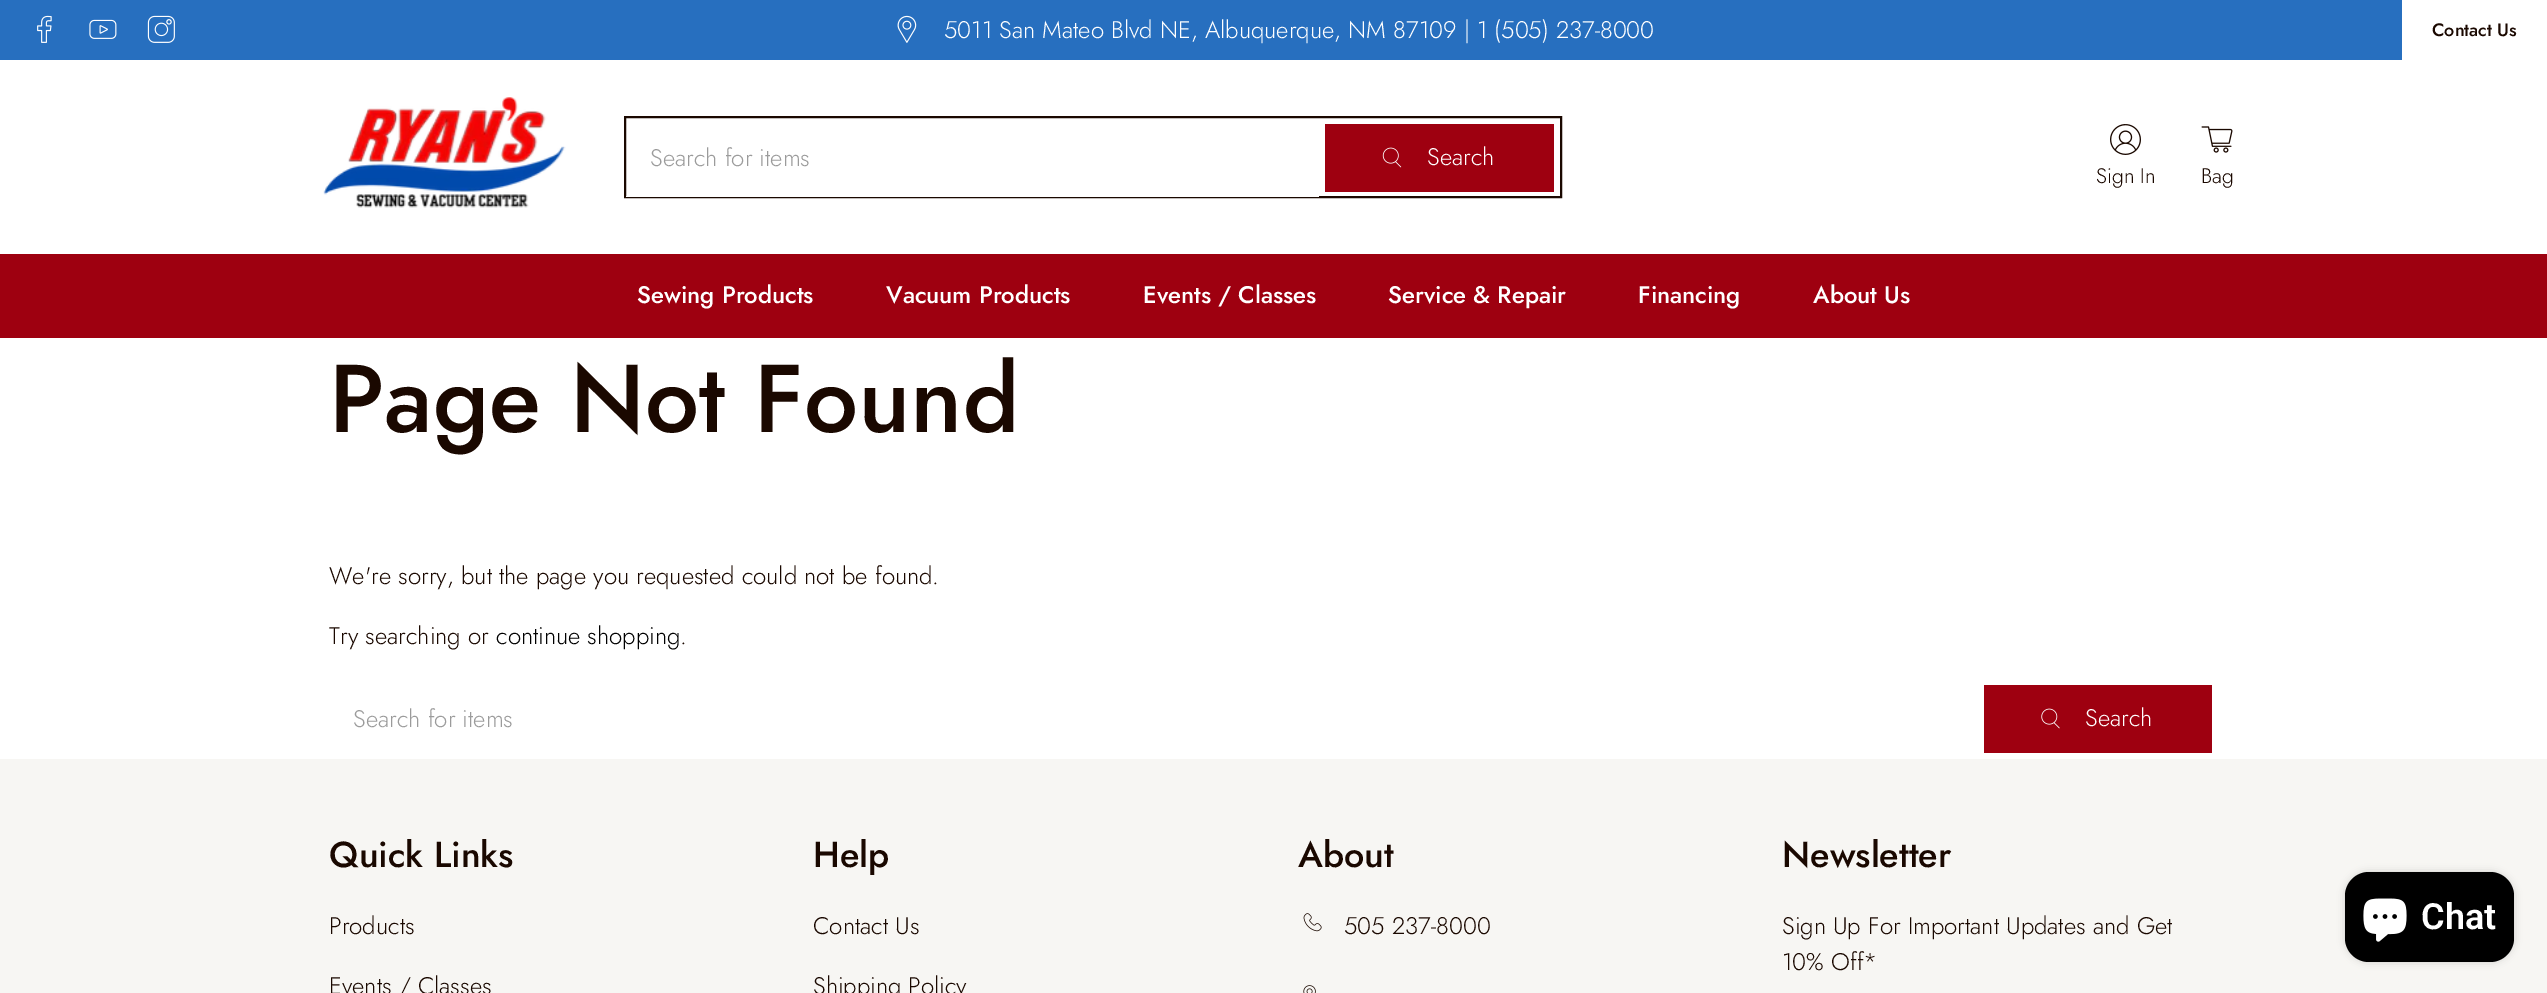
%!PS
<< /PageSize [2547 993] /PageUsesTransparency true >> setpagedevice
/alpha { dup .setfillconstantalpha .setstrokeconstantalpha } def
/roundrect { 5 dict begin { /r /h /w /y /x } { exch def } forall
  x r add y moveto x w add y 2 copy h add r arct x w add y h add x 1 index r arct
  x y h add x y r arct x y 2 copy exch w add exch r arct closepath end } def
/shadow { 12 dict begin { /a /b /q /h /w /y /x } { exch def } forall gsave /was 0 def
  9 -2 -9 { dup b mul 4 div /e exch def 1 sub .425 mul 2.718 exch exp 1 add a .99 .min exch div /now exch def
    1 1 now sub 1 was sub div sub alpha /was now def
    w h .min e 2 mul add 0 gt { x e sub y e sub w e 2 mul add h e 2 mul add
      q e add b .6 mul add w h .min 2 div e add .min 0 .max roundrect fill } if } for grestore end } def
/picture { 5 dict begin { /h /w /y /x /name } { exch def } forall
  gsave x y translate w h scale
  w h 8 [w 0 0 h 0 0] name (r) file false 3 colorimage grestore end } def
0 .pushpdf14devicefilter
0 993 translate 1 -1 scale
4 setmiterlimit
1 setgray
0 0 2547 993 rectfill
0.153 0.435 0.749 setrgbcolor
0 0 2402 60 rectfill
(img1.rgb) 37 15 15 28 picture
(img2.rgb) 89 19 28 20 picture
(img3.rgb) 147 15 28 28 picture
(img4.rgb) 897 15 20 28 picture
/Jost-Light [24 0 0 -24 0 0] selectfont
1 setgray
944 38 moveto (5011 San Mateo Blvd NE, Albuquerque, NM 87109 | 1 \(505\) 237-8000) show
/Jost-Medium [18 0 0 -18 0 0] selectfont
0.102 0.031 0 setrgbcolor
2432 36 moveto (Contact Us) show
0.62 0 0.063 setrgbcolor
0 254 2547 84 rectfill
(img5.rgb) 323 97 243 111 picture
0.102 0.031 0 setrgbcolor
2 setlinewidth
625 117 936 80 rectstroke
1 setgray
626 196 693 1 rectfill
/Jost-Light [24 0 0 -24 0 0] selectfont
0.608 setgray
650 166 moveto (Search for items) show
0.62 0 0.063 setrgbcolor
1325 124 229 68 rectfill
(img6.rgb) 1382 147 20 21 picture
1 setgray
1427 165 moveto (Search) show
(img7.rgb) 2110 124 31 31 picture
/Jost-Light [21 0 0 -21 0 0] selectfont
0.102 0.031 0 setrgbcolor
2096 183 moveto (Sign In) show
(img8.rgb) 2201 126 32 27 picture
2201 183 moveto (Bag) show
/Jost-Medium [24 0 0 -24 0 0] selectfont
1 setgray
637 303 moveto (Sewing Products) show
886 303 moveto (Vacuum Products) show
1143 303 moveto (Events / Classes) show
1388 303 moveto (Service & Repair) show
1638 303 moveto (Financing) show
1813 303 moveto (About Us) show
/Jost-Medium [96 0 0 -96 0 0] selectfont
0.102 0.031 0 setrgbcolor
329 432 moveto (Page Not Found) show
/Jost-Light [24 0 0 -24 0 0] selectfont
329 584 moveto (We're sorry, but the page you requested could not be found.) show
329 644 moveto (Try searching or) show
0 setgray
496 644 moveto (continue shopping) show
0.102 0.031 0 setrgbcolor
680 644 moveto (.) show
0.608 setgray
353 727 moveto (Search for items) show
0.62 0 0.063 setrgbcolor
1984 685 228 68 rectfill
(img9.rgb) 2041 708 19 21 picture
1 setgray
2085 726 moveto (Search) show
0.969 0.965 0.953 setrgbcolor
0 759 2547 234 rectfill
/Jost-Medium [36 0 0 -36 0 0] selectfont
0.102 0.031 0 setrgbcolor
329 867 moveto (Quick Links) show
/Jost-Light [24 0 0 -24 0 0] selectfont
329 934 moveto (Products) show
329 994 moveto (Events / Classes) show
/Jost-Medium [36 0 0 -36 0 0] selectfont
813 867 moveto (Help) show
/Jost-Light [24 0 0 -24 0 0] selectfont
813 934 moveto (Contact Us) show
813 994 moveto (Shipping Policy) show
/Jost-Medium [36 0 0 -36 0 0] selectfont
1298 867 moveto (About) show
(img10.rgb) 1303 913 19 19 picture
/Jost-Light [24 0 0 -24 0 0] selectfont
1344 934 moveto (505 237-8000) show
(img11.rgb) 1303 985 13 8 picture
/Jost-Medium [36 0 0 -36 0 0] selectfont
1782 867 moveto (Newsletter) show
/Jost-Light [24 0 0 -24 0 0] selectfont
1782 934 moveto (Sign Up For Important Updates and Get) show
1782 970 moveto (10% Off*) show
0 setgray
2345 872 169 90 24 4 0.15 shadow
2345 872 169 90 24 roundrect fill
(img12.rgb) 2363 898 44 44 picture
/Roboto-SemiBold [36 0 0 -36 0 0] selectfont
1 setgray
2421 929 moveto (Chat) show
.poppdf14devicefilter showpage
